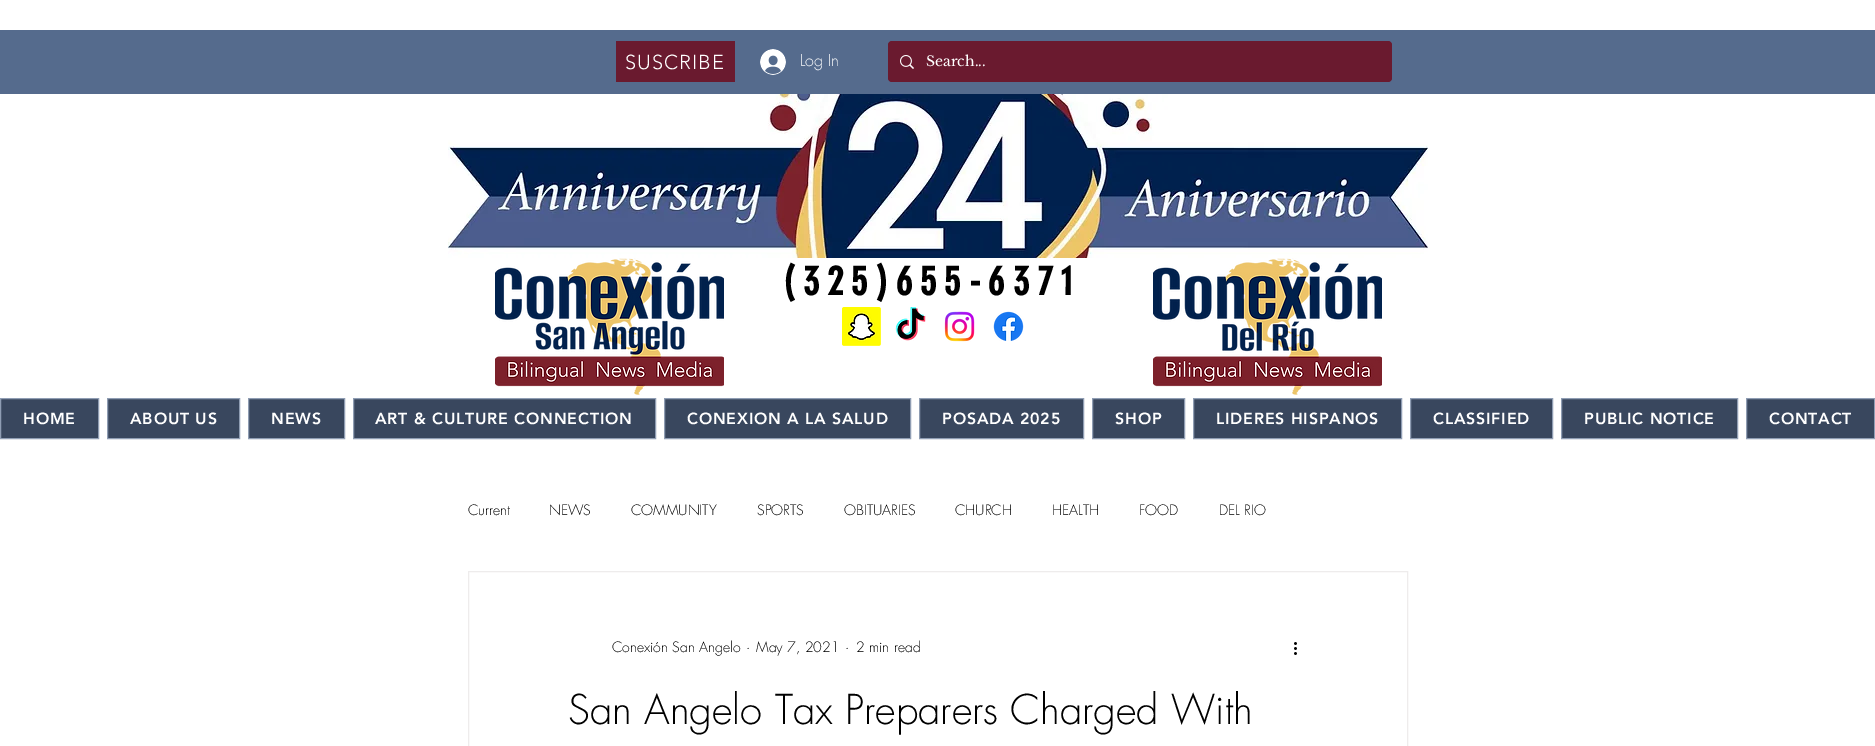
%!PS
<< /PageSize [1875 746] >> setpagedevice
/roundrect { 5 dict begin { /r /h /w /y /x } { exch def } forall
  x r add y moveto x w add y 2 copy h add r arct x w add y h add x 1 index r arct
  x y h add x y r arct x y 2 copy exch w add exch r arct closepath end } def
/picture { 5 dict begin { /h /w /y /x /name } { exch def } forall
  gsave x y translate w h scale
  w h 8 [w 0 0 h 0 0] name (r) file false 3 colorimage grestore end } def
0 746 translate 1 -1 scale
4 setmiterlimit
1 setgray
0 0 1875 746 rectfill
0.333 0.42 0.553 setrgbcolor
0 30 1875 64 rectfill
0.416 0.102 0.184 setrgbcolor
616 41 119 41 rectfill
/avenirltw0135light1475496-Light [20 0 0 -20 0 0] selectfont
1 setgray
625 69 moveto 1 0 (SUSCRIBE) ashow
(img1.rgb) 760 49 26 26 picture
/futura-Light [16 0 0 -16 0 0] selectfont
800 66 moveto (Log In) show
0.416 0.102 0.184 setrgbcolor
888 41 504 41 4 roundrect fill
(img2.rgb) 900 55 14 14 picture
/LibreBaskerville-Regular [14 0 0 -14 0 0] selectfont
1 setgray
926 66 moveto (Search...) show
(img3.rgb) 448 94 980 164 picture
(img4.rgb) 495 258 229 137 picture
/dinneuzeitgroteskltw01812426-Bold [40 0 0 -40 0 0] selectfont
0 setgray
783 295 moveto 8 0 (\(325\)655-6371) ashow
(img5.rgb) 1153 258 229 137 picture
(img6.rgb) 842 307 39 39 picture
(img7.rgb) 895 307 31 34 picture
(img8.rgb) 944 311 31 31 picture
(img9.rgb) 993 311 31 30 picture
0.224 0.278 0.369 setrgbcolor
newpath 0.5 398.5 moveto 98.5 398.5 lineto 98.5 438.5 lineto 0.5 438.5 lineto closepath gsave fill grestore
0.561 0.616 0.702 setrgbcolor
stroke
/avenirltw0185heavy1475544-Black [16 0 0 -16 0 0] selectfont
1 setgray
23 424 moveto 0.8 0 (HOME) ashow
0.224 0.278 0.369 setrgbcolor
newpath 107.5 398.5 moveto 239.5 398.5 lineto 239.5 438.5 lineto 107.5 438.5 lineto closepath gsave fill grestore
0.561 0.616 0.702 setrgbcolor
stroke
1 setgray
130 424 moveto 0.8 0 (ABOUT US) ashow
0.224 0.278 0.369 setrgbcolor
newpath 248.5 398.5 moveto 344.5 398.5 lineto 344.5 438.5 lineto 248.5 438.5 lineto closepath gsave fill grestore
0.561 0.616 0.702 setrgbcolor
stroke
1 setgray
271 424 moveto 0.8 0 (NEWS) ashow
0.224 0.278 0.369 setrgbcolor
newpath 353.5 398.5 moveto 655.5 398.5 lineto 655.5 438.5 lineto 353.5 438.5 lineto closepath gsave fill grestore
0.561 0.616 0.702 setrgbcolor
stroke
1 setgray
375 424 moveto 0.8 0 (ART & CULTURE CONNECTION) ashow
0.224 0.278 0.369 setrgbcolor
newpath 664.5 398.5 moveto 910.5 398.5 lineto 910.5 438.5 lineto 664.5 438.5 lineto closepath gsave fill grestore
0.561 0.616 0.702 setrgbcolor
stroke
1 setgray
687 424 moveto 0.8 0 (CONEXION A LA SALUD) ashow
0.224 0.278 0.369 setrgbcolor
newpath 919.5 398.5 moveto 1083.5 398.5 lineto 1083.5 438.5 lineto 919.5 438.5 lineto closepath gsave fill grestore
0.561 0.616 0.702 setrgbcolor
stroke
1 setgray
942 424 moveto 0.8 0 (POSADA 2025) ashow
0.224 0.278 0.369 setrgbcolor
newpath 1092.5 398.5 moveto 1184.5 398.5 lineto 1184.5 438.5 lineto 1092.5 438.5 lineto closepath gsave fill grestore
0.561 0.616 0.702 setrgbcolor
stroke
1 setgray
1115 424 moveto 0.8 0 (SHOP) ashow
0.224 0.278 0.369 setrgbcolor
newpath 1193.5 398.5 moveto 1401.5 398.5 lineto 1401.5 438.5 lineto 1193.5 438.5 lineto closepath gsave fill grestore
0.561 0.616 0.702 setrgbcolor
stroke
1 setgray
1216 424 moveto 0.8 0 (LIDERES HISPANOS) ashow
0.224 0.278 0.369 setrgbcolor
newpath 1410.5 398.5 moveto 1552.5 398.5 lineto 1552.5 438.5 lineto 1410.5 438.5 lineto closepath gsave fill grestore
0.561 0.616 0.702 setrgbcolor
stroke
1 setgray
1433 424 moveto 0.8 0 (CLASSIFIED) ashow
0.224 0.278 0.369 setrgbcolor
newpath 1561.5 398.5 moveto 1737.5 398.5 lineto 1737.5 438.5 lineto 1561.5 438.5 lineto closepath gsave fill grestore
0.561 0.616 0.702 setrgbcolor
stroke
1 setgray
1584 424 moveto 0.8 0 (PUBLIC NOTICE) ashow
0.224 0.278 0.369 setrgbcolor
newpath 1746.5 398.5 moveto 1874.5 398.5 lineto 1874.5 438.5 lineto 1746.5 438.5 lineto closepath gsave fill grestore
0.561 0.616 0.702 setrgbcolor
stroke
1 setgray
1769 424 moveto 0.8 0 (CONTACT) ashow
/futura-Light [14 0 0 -14 0 0] selectfont
0 setgray
468 515 moveto (Current) show
549 515 moveto (NEWS) show
631 515 moveto (COMMUNITY) show
757 515 moveto (SPORTS) show
844 515 moveto (OBITUARIES) show
955 515 moveto (CHURCH) show
1052 515 moveto (HEALTH) show
1139 515 moveto (FOOD) show
1219 515 moveto (DEL RIO) show
0.933 0.925 0.925 setrgbcolor
468.5 571.5 939 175 rectstroke
0 setgray
612 652 moveto (Conexión San Angelo) show
746 652 moveto (·) show
756 652 moveto (May 7, 2021) show
845 652 moveto (·) show
856 652 moveto (2 min read) show
(img10.rgb) 1294 642 3 13 picture
/futura-Light [40 0 0 -40 0 0] selectfont
568 724 moveto (San Angelo Tax Preparers Charged With) show
showpage
